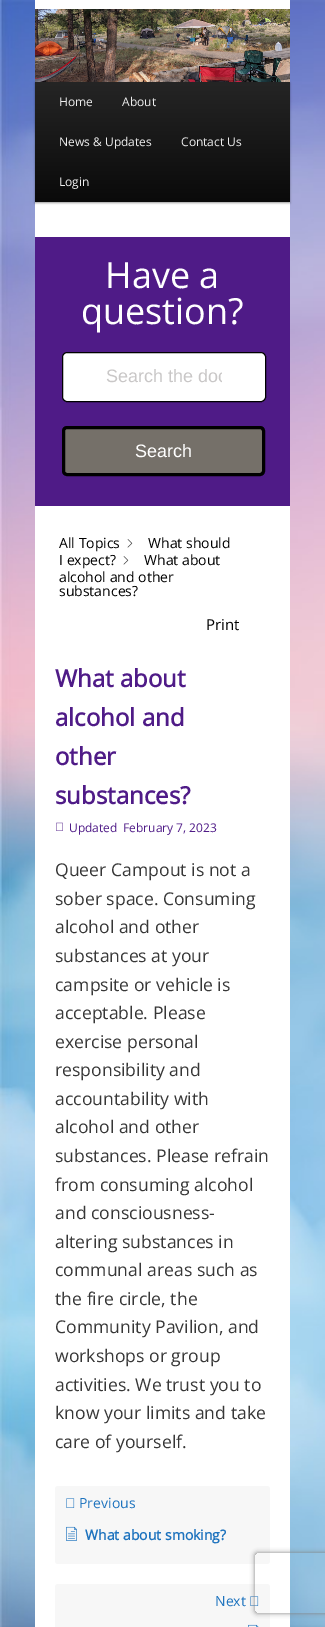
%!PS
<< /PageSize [325 1627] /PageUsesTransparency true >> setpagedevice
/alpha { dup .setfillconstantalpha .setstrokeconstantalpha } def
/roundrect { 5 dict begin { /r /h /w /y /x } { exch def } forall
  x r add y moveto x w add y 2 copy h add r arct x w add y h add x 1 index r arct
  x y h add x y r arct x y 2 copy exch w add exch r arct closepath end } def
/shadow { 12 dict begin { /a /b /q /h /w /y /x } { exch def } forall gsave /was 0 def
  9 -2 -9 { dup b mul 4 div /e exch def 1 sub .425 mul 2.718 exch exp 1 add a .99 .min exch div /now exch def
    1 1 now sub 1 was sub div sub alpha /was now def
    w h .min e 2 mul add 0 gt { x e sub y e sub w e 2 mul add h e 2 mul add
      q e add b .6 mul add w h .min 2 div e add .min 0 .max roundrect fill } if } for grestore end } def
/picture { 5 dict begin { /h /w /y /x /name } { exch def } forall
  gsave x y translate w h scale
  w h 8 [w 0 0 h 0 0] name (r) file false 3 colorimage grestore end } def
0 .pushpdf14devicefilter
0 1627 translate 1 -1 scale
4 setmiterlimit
1 setgray
0 0 325 1627 rectfill
(img1.rgb) 0 0 325 1627 picture
35 0 255 1627 rectfill
0 setgray
35 83 255 120 0 1 0.4 shadow
(img2.rgb) 35 9 255 73 picture
gsave newpath 35 82 moveto 290 82 lineto 290 202 lineto 35 202 lineto closepath clip newpath
<< /ShadingType 2 /ColorSpace /DeviceRGB /Coords [163 82 163 202] /Extend [true true] /Function << /FunctionType 2 /Domain [0 1] /C0 [0.145 0.145 0.145] /C1 [0.039 0.039 0.039] /N 1 >> >> shfill grestore
/OpenSans-Regular [12 0 0 -12 0 0] selectfont
0.933 setgray
59 106 moveto (Home) show
122 106 moveto (About) show
59 146 moveto (News & Updates) show
181 146 moveto (Contact Us) show
59 186 moveto (Login) show
0.31 0.106 0.529 setrgbcolor
35 237 255 269 rectfill
/OpenSans-Regular [36 0 0 -36 0 0] selectfont
1 setgray
105 288 moveto (Have a) show
81 324 moveto (question?) show
62.5 352.5 203 49 4.5 roundrect gsave fill grestore
0 setgray
stroke
gsave
106 366 116 21 rectclip
/LiberationSans-Regular [18 0 0 -18 0 0] selectfont
0.788 0.78 0.78 setrgbcolor
106 382 moveto (Search the doc) show
grestore
0.459 0.439 0.412 setrgbcolor
63.5 427.5 200 47 3.5 roundrect gsave fill grestore
0 setgray
3 setlinewidth
stroke
/LiberationSans-Regular [18 0 0 -18 0 0] selectfont
1 setgray
135 457 moveto (Search) show
/OpenSans-Regular [14 0 0 -14 0 0] selectfont
0 setgray
59 548 moveto (All Topics) show
(img3.rgb) 127 539 6 9 picture
148 548 moveto (What should) show
59 565 moveto (I expect?) show
(img3.rgb) 123 556 6 9 picture
144 565 moveto (What about) show
59 582 moveto (alcohol and other) show
59 596 moveto (substances?) show
/OpenSans-Regular [15 0 0 -15 0 0] selectfont
206 630 moveto (Print) show
/OpenSans-Bold [24 0 0 -24 0 0] selectfont
0.31 0.106 0.529 setrgbcolor
55 687 moveto (What about) show
55 726 moveto (alcohol and) show
55 765 moveto (other) show
55 804 moveto (substances?) show
(img4.rgb) 56 822 7 9 picture
/OpenSans-Regular [12 0 0 -12 0 0] selectfont
69 832 moveto (Updated) show
123 832 moveto (February 7, 2023) show
/OpenSans-Regular [17.6 0 0 -17.6 0 0] selectfont
0.216 setgray
55 876 moveto (Queer Campout is not a) show
55 905 moveto (sober space. Consuming) show
55 933 moveto (alcohol and other) show
55 962 moveto (substances at your) show
55 991 moveto (campsite or vehicle is) show
55 1019 moveto (acceptable. Please) show
55 1048 moveto (exercise personal) show
55 1076 moveto (responsibility and) show
55 1105 moveto (accountability with) show
55 1133 moveto (alcohol and other) show
55 1162 moveto (substances. Please refrain) show
55 1191 moveto (from consuming alcohol) show
55 1219 moveto (and consciousness-) show
55 1248 moveto (altering substances in) show
55 1276 moveto (communal areas such as) show
55 1305 moveto (the fire circle, the) show
55 1333 moveto (Community Pavilion, and) show
55 1362 moveto (workshops or group) show
55 1391 moveto (activities. We trust you to) show
55 1419 moveto (know your limits and take) show
55 1448 moveto (care of yourself.) show
0.969 setgray
55 1486 215 78 3 roundrect fill
(img5.rgb) 66 1498 9 10 picture
/OpenSans-Regular [14 0 0 -14 0 0] selectfont
0.118 0.451 0.745 setrgbcolor
79 1508 moveto (Previous) show
(img6.rgb) 66 1526 11 15 picture
/OpenSans-Bold [14 0 0 -14 0 0] selectfont
85 1540 moveto (What about smoking?) show
0.969 setgray
55 1584 215 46 3 roundrect fill
/OpenSans-Regular [14 0 0 -14 0 0] selectfont
0.118 0.451 0.745 setrgbcolor
215 1606 moveto (Next) show
(img5.rgb) 250 1596 9 10 picture
(img7.rgb) 248 1624 11 3 picture
gsave
newpath 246 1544 moveto 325 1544 lineto 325 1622 lineto 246 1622 lineto closepath 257 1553 moveto 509 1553 lineto 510 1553 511 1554 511 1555 curveto 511 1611 lineto 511 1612 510 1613 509 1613 curveto 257 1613 lineto 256 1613 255 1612 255 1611 curveto 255 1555 lineto 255 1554 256 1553 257 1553 curveto closepath eoclip newpath
0.502 setgray
255 1553 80 60 2 2.5 1 shadow
grestore
.poppdf14devicefilter showpage
